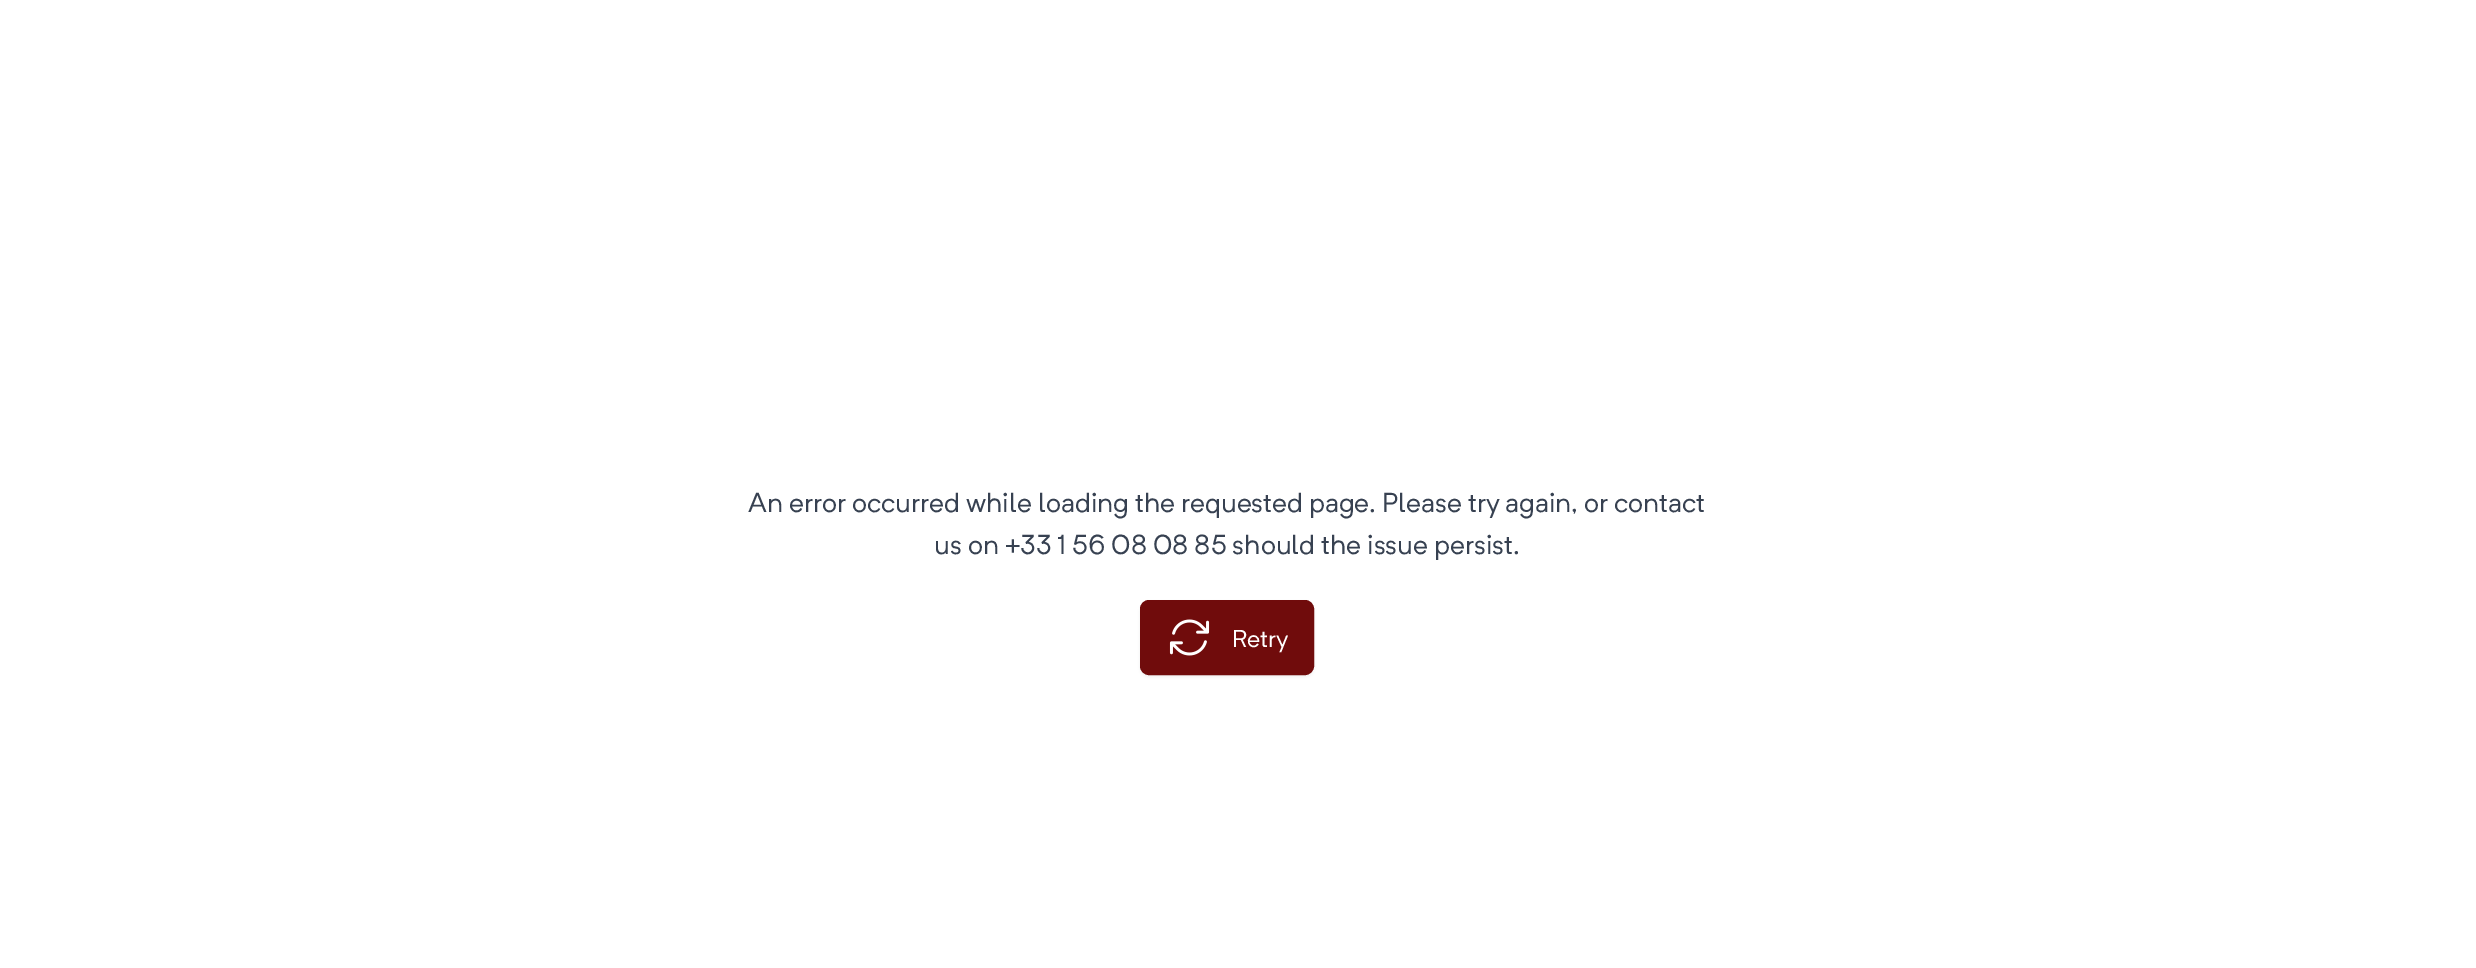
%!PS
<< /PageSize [2476 968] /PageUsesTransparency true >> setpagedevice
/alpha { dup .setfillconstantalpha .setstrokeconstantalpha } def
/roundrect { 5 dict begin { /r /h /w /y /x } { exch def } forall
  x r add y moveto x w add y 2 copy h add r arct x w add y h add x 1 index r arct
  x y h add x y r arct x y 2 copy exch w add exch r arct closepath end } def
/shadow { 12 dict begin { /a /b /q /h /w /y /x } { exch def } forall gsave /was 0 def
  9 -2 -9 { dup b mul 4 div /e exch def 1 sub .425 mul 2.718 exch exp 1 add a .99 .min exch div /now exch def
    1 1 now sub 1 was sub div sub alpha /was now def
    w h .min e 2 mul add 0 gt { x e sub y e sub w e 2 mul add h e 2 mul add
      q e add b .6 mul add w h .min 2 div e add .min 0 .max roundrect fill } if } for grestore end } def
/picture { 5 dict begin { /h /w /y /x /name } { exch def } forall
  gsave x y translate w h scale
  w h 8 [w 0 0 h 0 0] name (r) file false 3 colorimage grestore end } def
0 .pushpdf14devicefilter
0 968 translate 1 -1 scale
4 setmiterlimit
1 setgray
0 0 2476 968 rectfill
/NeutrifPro-Regular [27 0 0 -27 0 0] selectfont
0.216 0.255 0.318 setrgbcolor
748 512 moveto (An error occurred while loading the requested page. Please try again, or contact) show
934 554 moveto (us on +33 1 56 08 08 85 should the issue persist.) show
0 setgray
1140 602 174 75 9 1.5 0.05 shadow
0.439 0.047 0.047 setrgbcolor
1141 601 172 73 8 roundrect gsave fill grestore
2 setlinewidth
stroke
(img1.rgb) 1169 619 41 37 picture
/NeutrifPro-Regular [24 0 0 -24 0 0] selectfont
1 setgray
1232 647 moveto (Retry) show
.poppdf14devicefilter showpage
